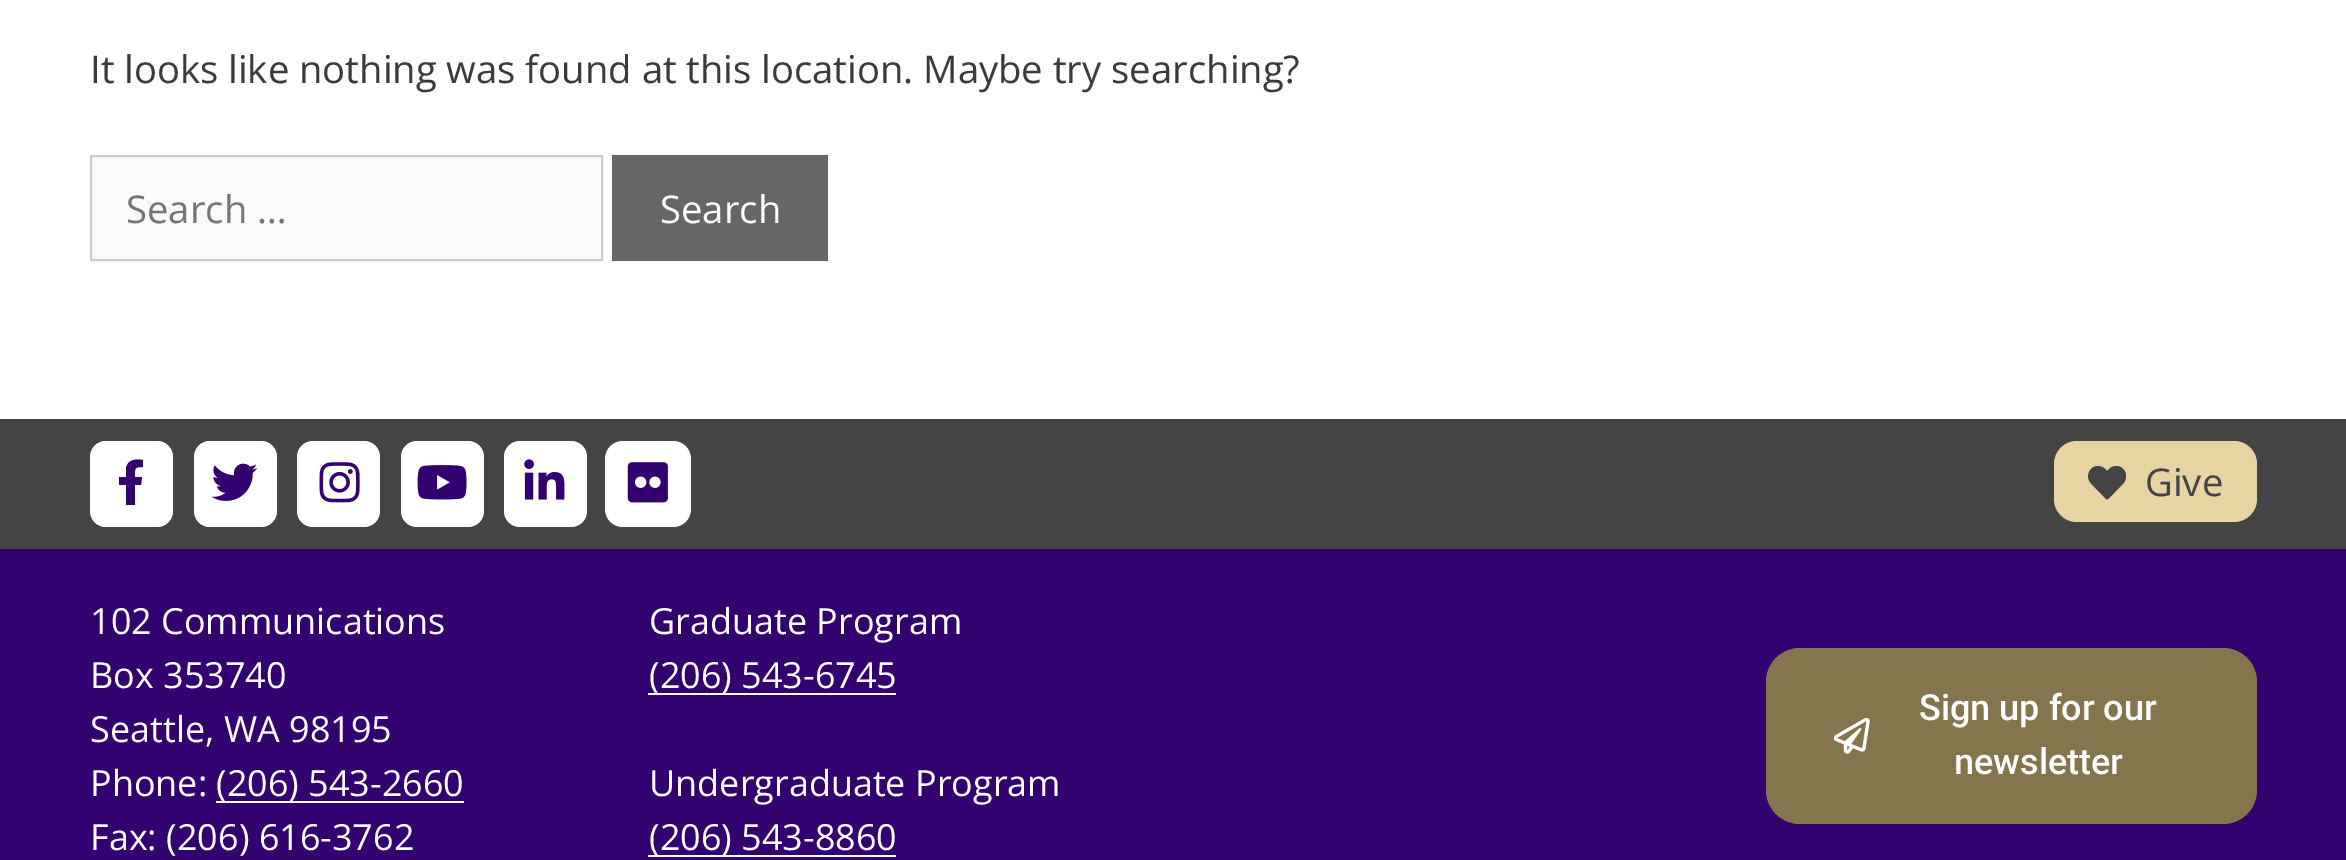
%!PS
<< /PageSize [2346 860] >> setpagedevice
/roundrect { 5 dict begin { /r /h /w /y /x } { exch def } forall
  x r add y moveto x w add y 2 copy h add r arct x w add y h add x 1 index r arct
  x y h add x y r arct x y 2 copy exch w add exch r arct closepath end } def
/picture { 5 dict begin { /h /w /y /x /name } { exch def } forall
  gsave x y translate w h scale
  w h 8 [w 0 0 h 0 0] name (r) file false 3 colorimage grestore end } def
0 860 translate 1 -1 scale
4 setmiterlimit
1 setgray
0 0 2346 860 rectfill
/OpenSans-Regular [38.25 0 0 -38.25 0 0] selectfont
0.227 setgray
90 83 moveto (It looks like nothing was found at this location. Maybe try searching?) show
0.98 setgray
newpath 91 156 moveto 602 156 lineto 602 260 lineto 91 260 lineto closepath gsave fill grestore
0.8 setgray
2 setlinewidth
stroke
0.459 setgray
126 223 moveto (Search …) show
0.4 setgray
612 155 216 106 rectfill
1 setgray
660 223 moveto (Search) show
0.267 setgray
0 419 2346 130 rectfill
1 setgray
90 441 83 86 16 roundrect fill
0.2 0 0.435 setrgbcolor
newpath 126 505 moveto 126 485 lineto 119 485 lineto 119 477 lineto 126 477 lineto 126 468 lineto 128 459 136 459 143 460 curveto 143 467 lineto 134 467 135 468 135 477 curveto 142 477 lineto 141 485 lineto 135 485 lineto 135 505 lineto closepath fill
1 setgray
194 441 83 86 16 roundrect fill
(img1.rgb) 211 463 47 38 picture
297 441 83 86 16 roundrect fill
(img2.rgb) 319 462 41 41 picture
401 441 83 86 16 roundrect fill
(img3.rgb) 417 465 50 35 picture
504 441 83 86 16 roundrect fill
(img4.rgb) 524 459 41 41 picture
605 441 86 86 18 roundrect fill
(img5.rgb) 627 462 41 41 picture
0.91 0.827 0.635 setrgbcolor
2054 441 203 81 23 roundrect fill
(img6.rgb) 2088 465 38 35 picture
0.267 setgray
2145 496 moveto (Give) show
0.2 0 0.435 setrgbcolor
0 549 2346 311 rectfill
/OpenSans-Regular [36 0 0 -36 0 0] selectfont
1 setgray
90 634 moveto (102 Communications) show
90 688 moveto (Box 353740) show
90 742 moveto (Seattle, WA 98195) show
90 796 moveto (Phone:) show
216 801 248 2 rectfill
216 796 moveto (\(206\) 543-2660) show
90 850 moveto (Fax: \(206\) 616-3762) show
649 634 moveto (Graduate Program) show
648 693 248 2 rectfill
649 688 moveto (\(206\) 543-6745) show
649 796 moveto (Undergraduate Program) show
648 855 248 2 rectfill
649 850 moveto (\(206\) 543-8860) show
0.522 0.459 0.302 setrgbcolor
1766 648 491 176 34 roundrect fill
(img7.rgb) 1834 718 36 36 picture
/Roboto-Medium [36 0 0 -36 0 0] selectfont
1 setgray
1919 720 moveto (Sign up for our) show
1954 774 moveto (newsletter) show
showpage
